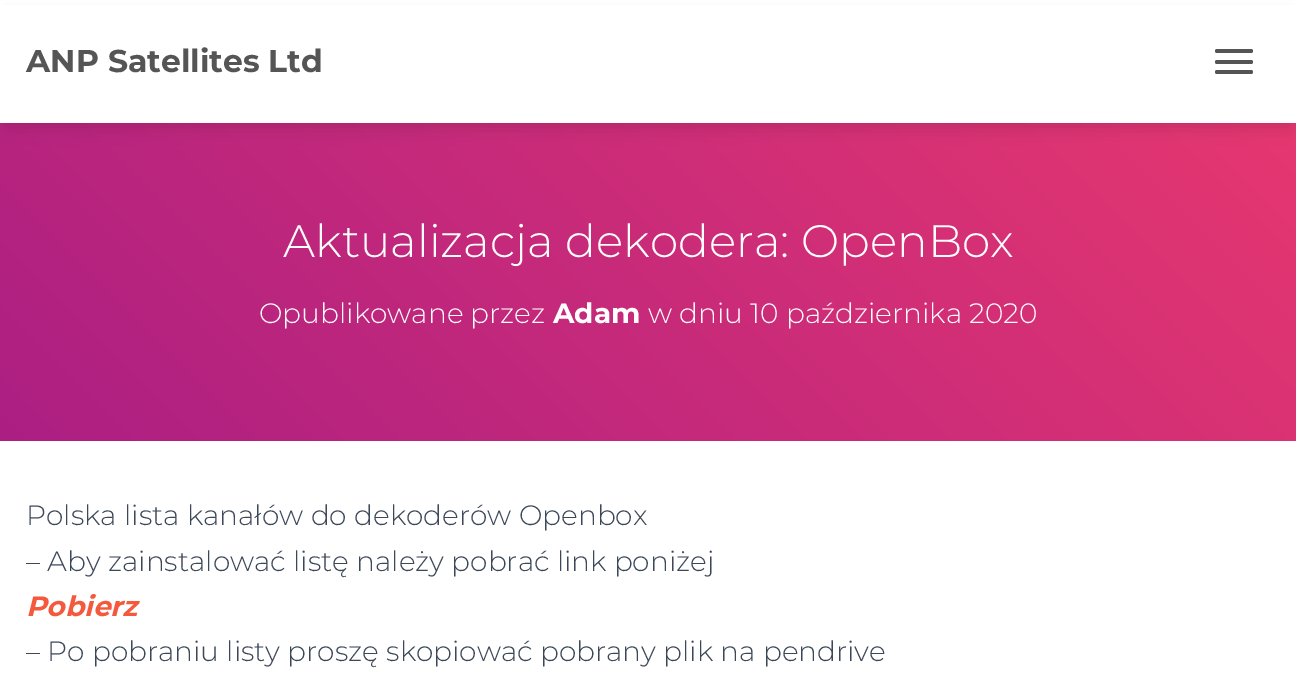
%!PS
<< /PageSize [1296 684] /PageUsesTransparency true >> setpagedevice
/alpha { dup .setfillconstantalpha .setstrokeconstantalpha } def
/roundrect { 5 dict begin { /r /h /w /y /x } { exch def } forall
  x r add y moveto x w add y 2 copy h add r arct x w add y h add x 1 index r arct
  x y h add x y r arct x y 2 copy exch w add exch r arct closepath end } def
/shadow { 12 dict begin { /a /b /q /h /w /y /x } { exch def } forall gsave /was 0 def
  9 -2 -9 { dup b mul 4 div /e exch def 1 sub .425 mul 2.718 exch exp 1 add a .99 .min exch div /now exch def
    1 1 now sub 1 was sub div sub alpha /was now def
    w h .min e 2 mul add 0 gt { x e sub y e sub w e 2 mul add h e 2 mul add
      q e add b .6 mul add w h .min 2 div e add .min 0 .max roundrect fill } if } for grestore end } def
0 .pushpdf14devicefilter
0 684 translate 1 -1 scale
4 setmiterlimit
1 setgray
0 0 1296 684 rectfill
gsave newpath 0 123 moveto 1296 123 lineto 1296 441 lineto 0 441 lineto closepath clip newpath
<< /ShadingType 2 /ColorSpace /DeviceRGB /Coords [188 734 1109 -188] /Extend [true true] /Function << /FunctionType 2 /Domain [0 1] /C0 [0.659 0.114 0.518] /C1 [0.918 0.224 0.435] /N 1 >> >> shfill grestore
0 setgray
7 18 1283 108 0 9 0.15 shadow
1 setgray
0 5 1296 118 rectfill
/Montserrat-Bold [31.5 0 0 -31.5 0 0] selectfont
0.333 setgray
26 72 moveto (ANP Satellites Ltd) show
1215 49 38 4 2 roundrect fill
1215 60 38 4 2 roundrect fill
1215 70 38 4 2 roundrect fill
/Montserrat-Light [45.5 0 0 -45.5 0 0] selectfont
1 setgray
283 257 moveto (Aktualizacja dekodera: OpenBox) show
/Montserrat-Light [28 0 0 -28 0 0] selectfont
259 323 moveto (Opublikowane przez) show
/Montserrat-Bold [28 0 0 -28 0 0] selectfont
553 323 moveto (Adam) show
/Montserrat-Light [28 0 0 -28 0 0] selectfont
648 323 moveto (w dniu 10 października 2020) show
0.235 0.282 0.345 setrgbcolor
26 525 moveto (Polska lista kanałów do dekoderów Openbox) show
26 571 moveto (– Aby zainstalować listę należy pobrać link poniżej) show
/Montserrat-BoldItalic [28 0 0 -28 0 0] selectfont
0.961 0.349 0.239 setrgbcolor
26 616 moveto (Pobierz) show
/Montserrat-Light [28 0 0 -28 0 0] selectfont
0.235 0.282 0.345 setrgbcolor
26 661 moveto (– Po pobraniu listy proszę skopiować pobrany plik na pendrive) show
.poppdf14devicefilter showpage
